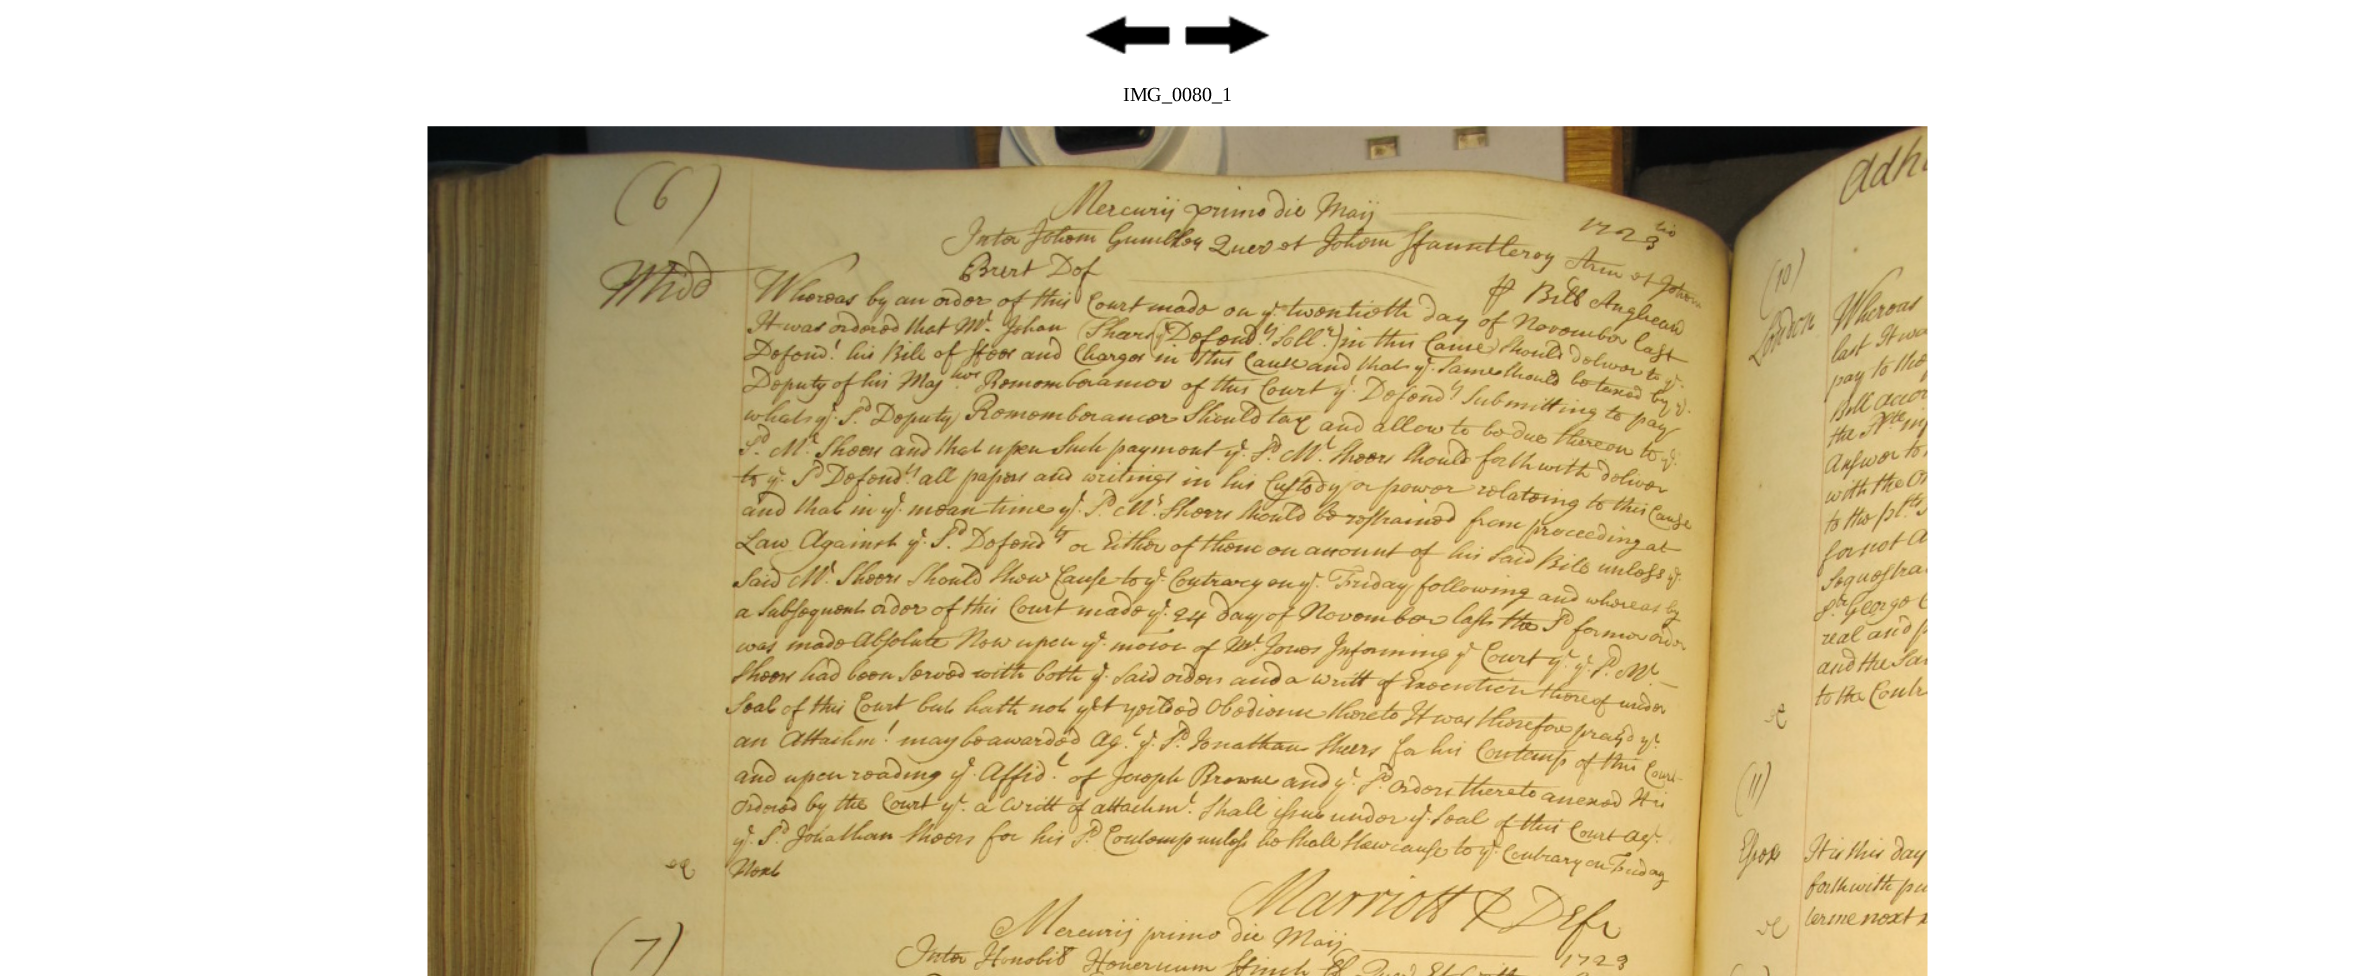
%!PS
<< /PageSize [2354 976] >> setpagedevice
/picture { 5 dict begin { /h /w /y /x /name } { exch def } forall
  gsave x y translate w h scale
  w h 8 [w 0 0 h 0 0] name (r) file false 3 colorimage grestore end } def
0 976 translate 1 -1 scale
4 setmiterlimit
1 setgray
0 0 2354 976 rectfill
(img1.rgb) 1084 15 87 39 picture
(img2.rgb) 1184 15 87 39 picture
/LiberationSerif-Regular [20 0 0 -20 0 0] selectfont
0 setgray
1123 101 moveto (IMG_0080_1) show
(img3.rgb) 427 126 1501 850 picture
showpage
